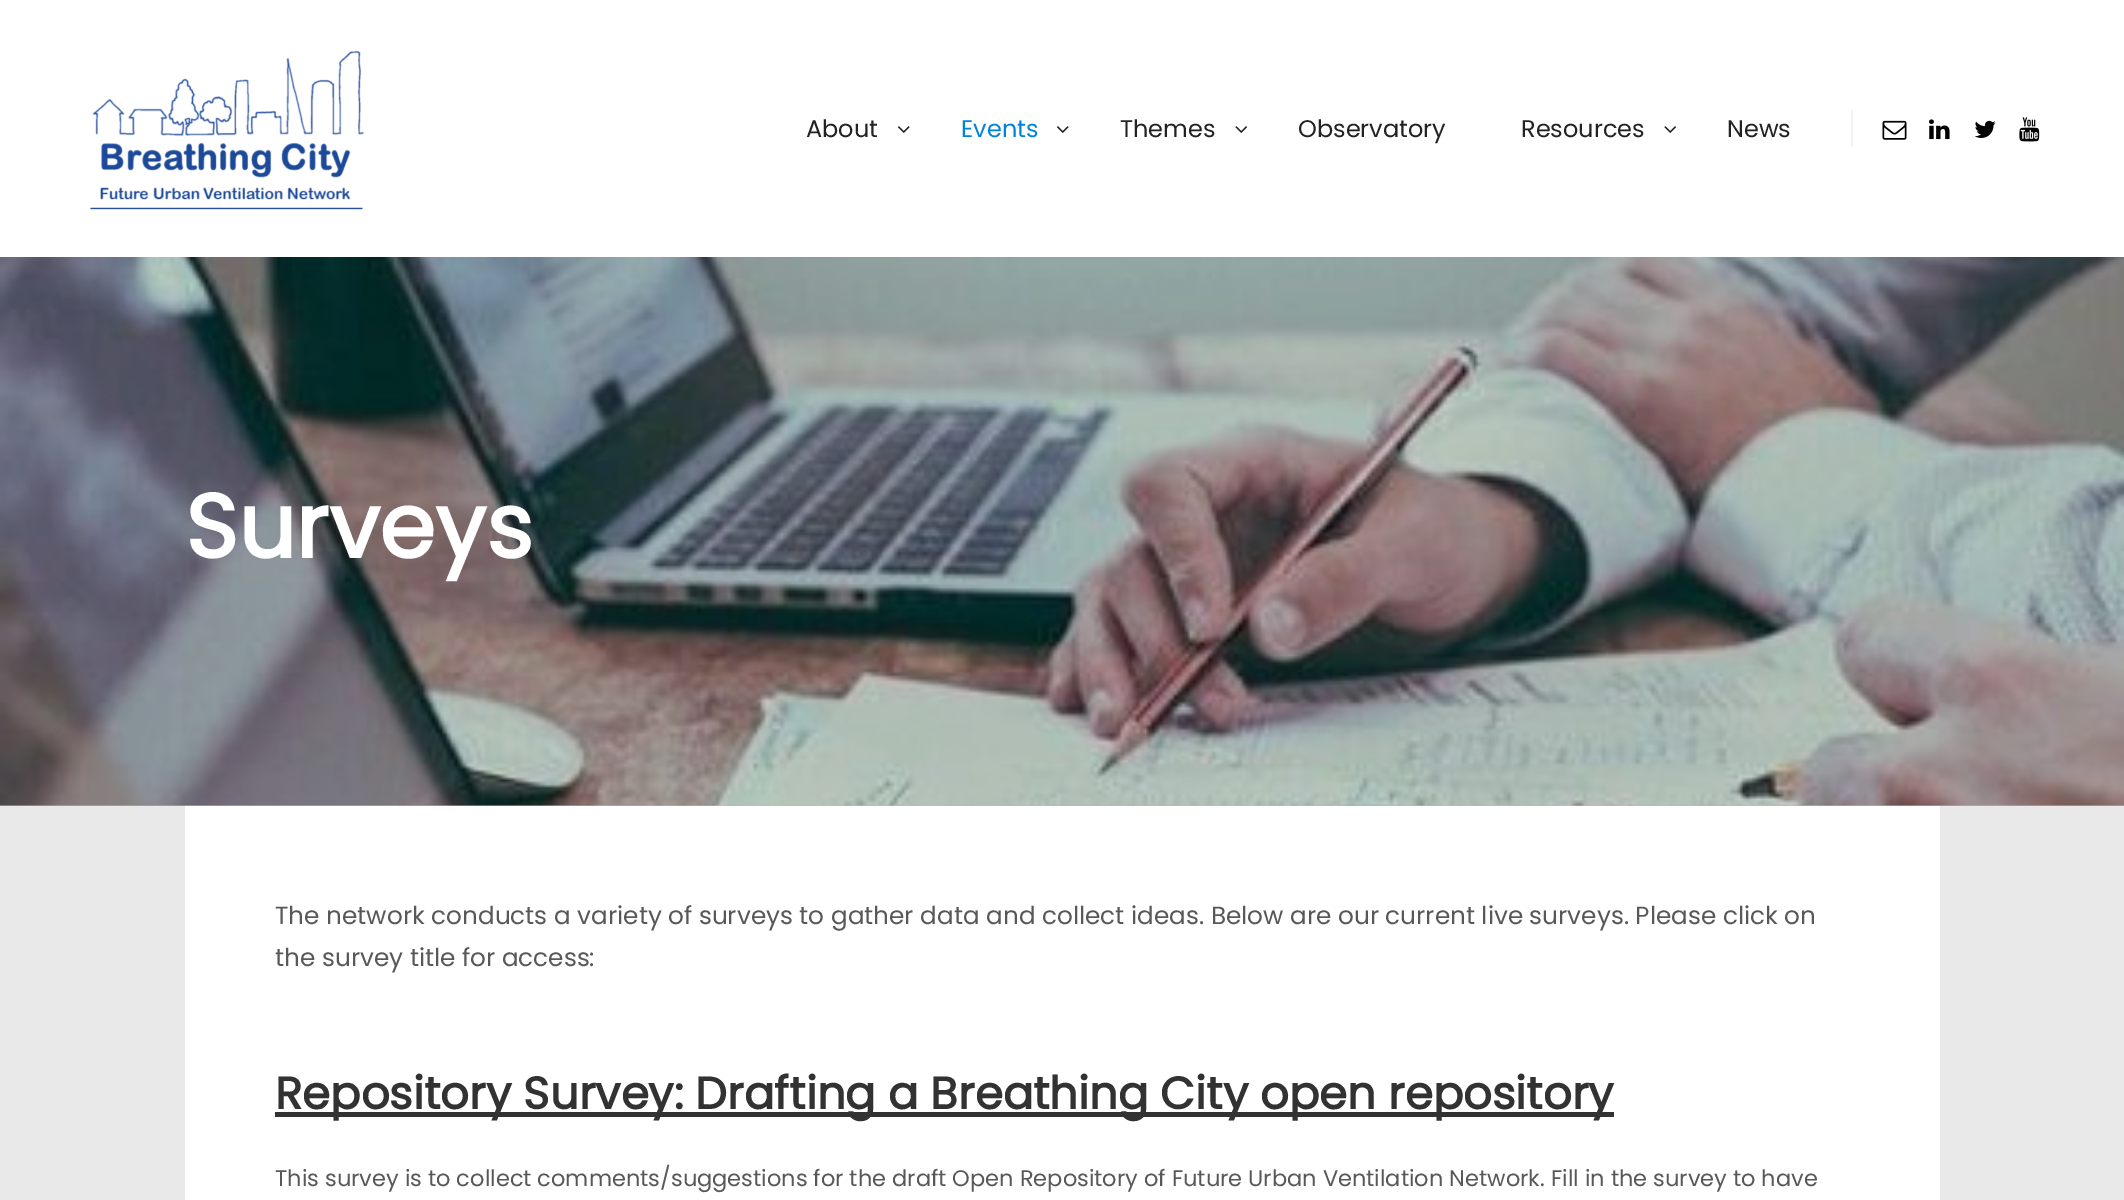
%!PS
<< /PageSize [2124 1200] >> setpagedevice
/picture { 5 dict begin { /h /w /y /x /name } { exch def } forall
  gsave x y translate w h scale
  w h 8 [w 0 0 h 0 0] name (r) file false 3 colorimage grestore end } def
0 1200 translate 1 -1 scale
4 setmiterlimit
0.914 setgray
0 0 2124 1200 rectfill
1 setgray
0 0 2124 257 rectfill
(img1.rgb) 90 50 274 160 picture
/Poppins-Regular [24 0 0 -24 0 0] selectfont
0.133 setgray
806 137 moveto (About) show
(img2.rgb) 898 126 12 7 picture
0 0.514 0.867 setrgbcolor
961 137 moveto (Events) show
(img2.rgb) 1057 126 12 7 picture
0.133 setgray
1120 137 moveto (Themes) show
(img3.rgb) 1235 126 12 7 picture
1298 137 moveto (Observatory) show
1521 137 moveto (Resources) show
(img3.rgb) 1664 126 12 7 picture
1727 137 moveto (News) show
0.953 setgray
1851 110 2 37 rectfill
(img4.rgb) 1882 120 25 20 picture
(img5.rgb) 1929 119 21 21 picture
(img6.rgb) 1974 120 22 18 picture
(img7.rgb) 2019 117 21 25 picture
0.729 setgray
0 805 2124 1 rectfill
(img8.rgb) 0 257 2124 549 picture
/Poppins-Bold [90 0 0 -90 0 0] selectfont
1 setgray
185 558 moveto (Surveys) show
185 806 1755 394 rectfill
/Poppins-Regular [24.75 0 0 -24.75 0 0] selectfont
0.345 setgray
275 924 moveto (The network conducts a variety of surveys to gather data and collect ideas. Below are our current live surveys. Please click on) show
275 966 moveto (the survey title for access:) show
0.196 setgray
275 1112 1339 5 rectfill
/Poppins-Bold [45 0 0 -45 0 0] selectfont
275 1109 moveto (Repository Survey: Drafting a Breathing City open repository) show
/Poppins-Regular [22.5 0 0 -22.5 0 0] selectfont
0.345 setgray
275 1186 moveto (This survey is to collect comments/suggestions for the draft Open Repository of Future Urban Ventilation Network. Fill in the survey to have) show
showpage
